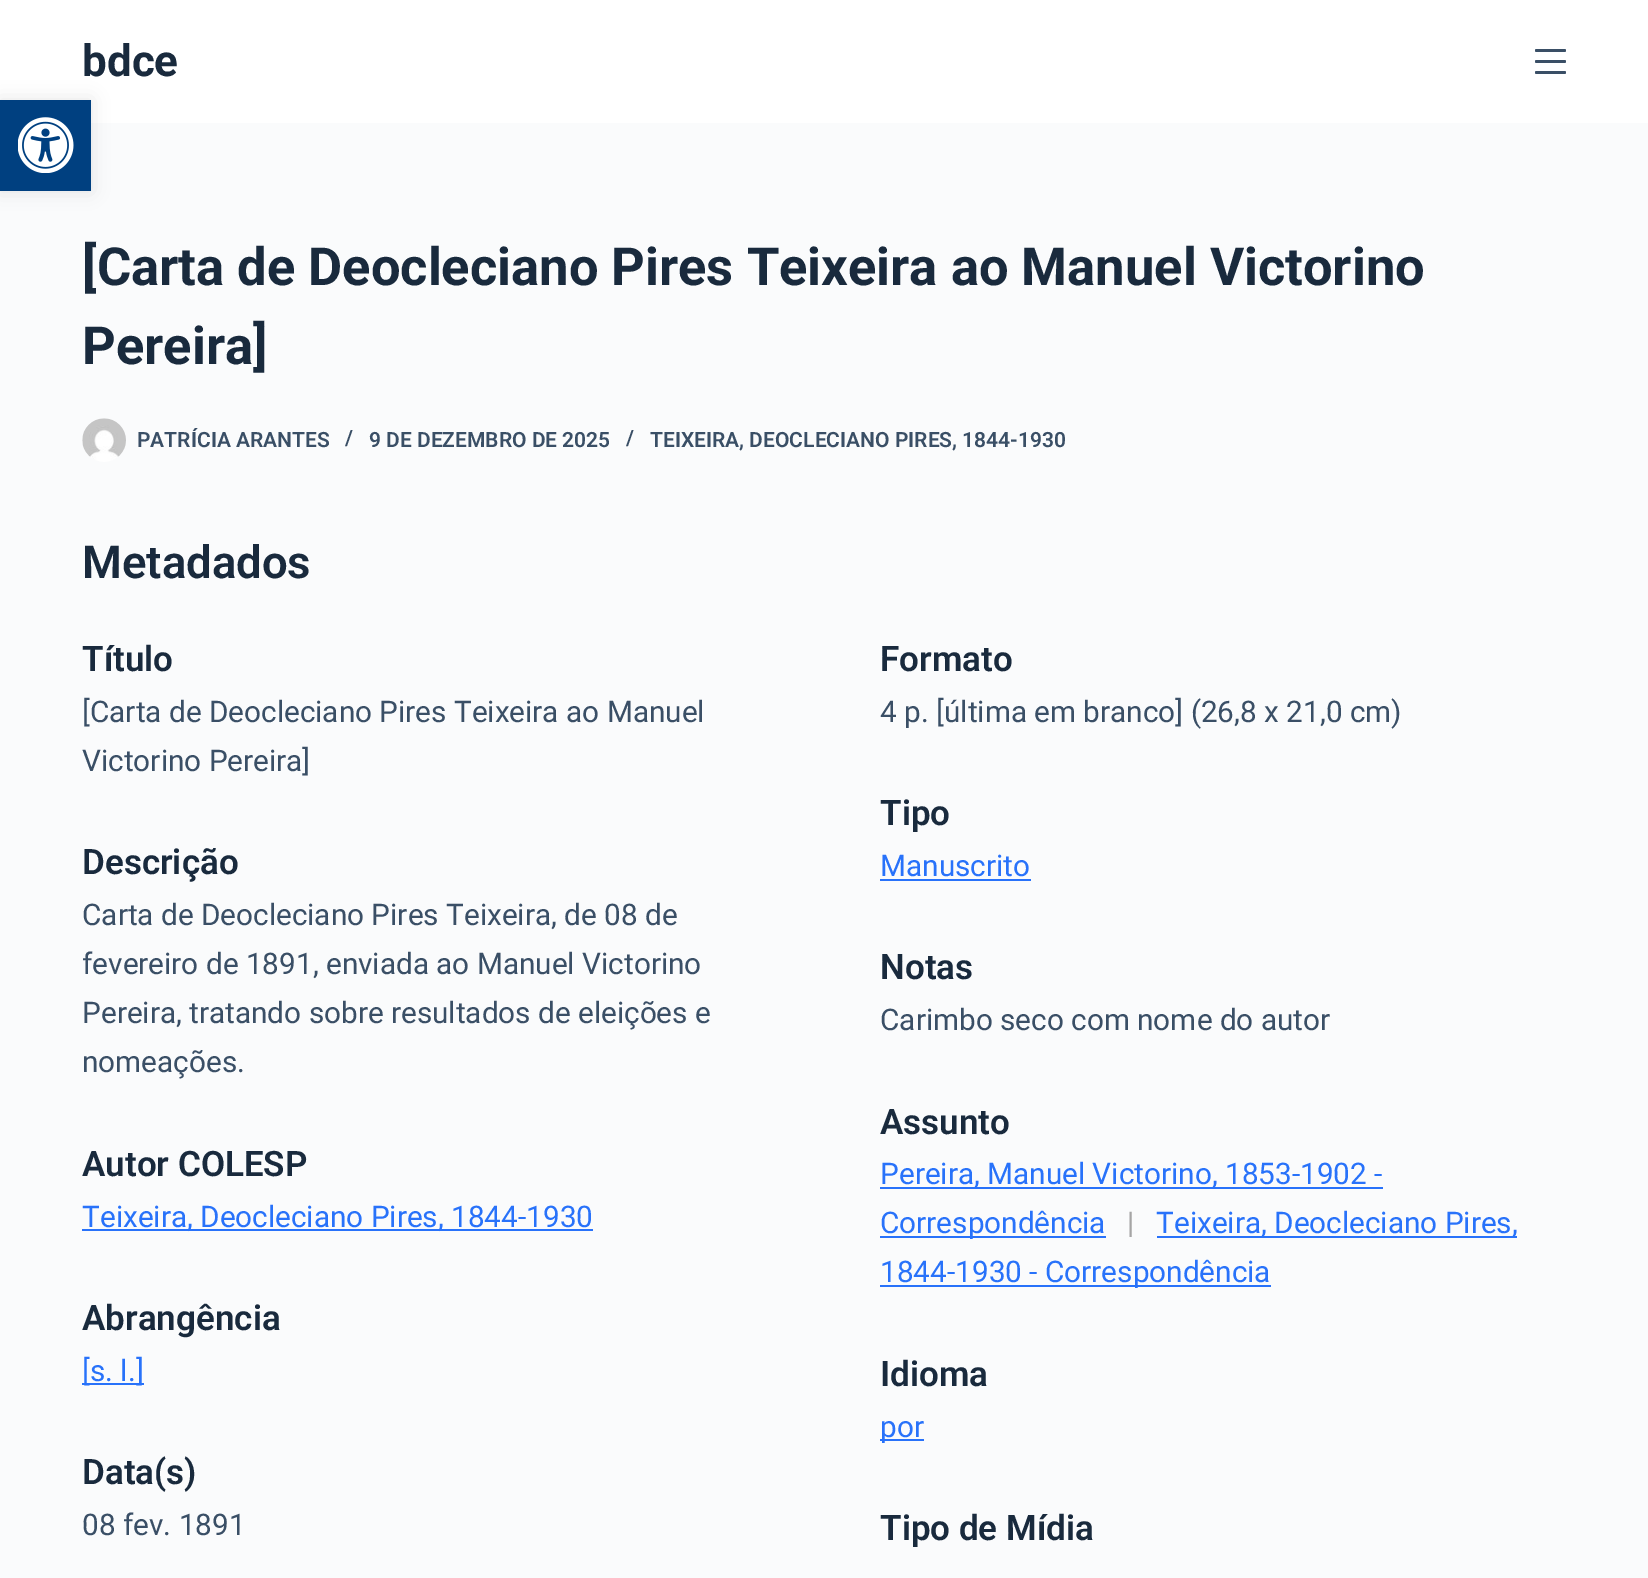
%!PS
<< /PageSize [1648 1578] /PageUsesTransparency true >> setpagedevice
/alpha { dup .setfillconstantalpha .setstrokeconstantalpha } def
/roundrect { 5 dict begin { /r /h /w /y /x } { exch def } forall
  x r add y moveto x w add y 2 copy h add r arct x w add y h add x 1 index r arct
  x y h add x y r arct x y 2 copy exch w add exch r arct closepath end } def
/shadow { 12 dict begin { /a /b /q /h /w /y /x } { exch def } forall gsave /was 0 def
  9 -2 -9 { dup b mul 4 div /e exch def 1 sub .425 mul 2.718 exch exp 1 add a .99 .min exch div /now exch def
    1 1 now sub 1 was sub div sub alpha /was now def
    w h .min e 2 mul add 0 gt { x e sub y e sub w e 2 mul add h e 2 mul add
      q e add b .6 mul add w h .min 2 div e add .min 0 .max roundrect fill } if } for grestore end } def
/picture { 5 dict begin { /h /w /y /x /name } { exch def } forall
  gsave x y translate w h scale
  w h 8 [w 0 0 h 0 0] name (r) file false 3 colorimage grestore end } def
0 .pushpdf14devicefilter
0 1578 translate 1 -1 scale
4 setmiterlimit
0.98 0.984 0.988 setrgbcolor
0 0 1648 1578 rectfill
1 setgray
0 0 1648 123 rectfill
0 setgray
0 100 91 91 0 9 0.1 shadow
0 0.251 0.502 setrgbcolor
0 100 91 91 rectfill
(img1.rgb) 18 117 56 56 picture
/Roboto-Bold [44 0 0 -44 0 0] selectfont
0.098 0.165 0.239 setrgbcolor
82 76 moveto (bdce) show
0.227 0.31 0.4 setrgbcolor
1535 49 31 3 1.5 roundrect fill
1535 60 31 3 1.5 roundrect fill
1535 71 31 3 1.5 roundrect fill
/Roboto-Bold [52.5 0 0 -52.5 0 0] selectfont
0.098 0.165 0.239 setrgbcolor
82 285 moveto ([Carta de Deocleciano Pires Teixeira ao Manuel Victorino) show
82 364 moveto (Pereira]) show
(img2.rgb) 82 418 44 44 picture
/Roboto-SemiBold [21 0 0 -21 0 0] selectfont
0.227 0.31 0.4 setrgbcolor
137 447 moveto (PATRÍCIA ARANTES) show
345 445 moveto (/) show
369 447 moveto (9 DE DEZEMBRO DE 2025) show
626 445 moveto (/) show
650 447 moveto (TEIXEIRA, DEOCLECIANO PIRES, 1844-1930) show
/Roboto-SemiBold [45.5 0 0 -45.5 0 0] selectfont
0.098 0.165 0.239 setrgbcolor
82 578 moveto (Metadados) show
/Roboto-SemiBold [35 0 0 -35 0 0] selectfont
82 671 moveto (Título) show
/Roboto-Regular [29.75 0 0 -29.75 0 0] selectfont
0.227 0.31 0.4 setrgbcolor
82 722 moveto ([Carta de Deocleciano Pires Teixeira ao Manuel) show
82 771 moveto (Victorino Pereira]) show
/Roboto-SemiBold [35 0 0 -35 0 0] selectfont
0.098 0.165 0.239 setrgbcolor
880 671 moveto (Formato) show
/Roboto-Regular [29.75 0 0 -29.75 0 0] selectfont
0.227 0.31 0.4 setrgbcolor
880 722 moveto (4 p. [última em branco] \(26,8 x 21,0 cm\)) show
/Roboto-SemiBold [35 0 0 -35 0 0] selectfont
0.098 0.165 0.239 setrgbcolor
880 825 moveto (Tipo) show
/Roboto-Regular [29.75 0 0 -29.75 0 0] selectfont
0.157 0.447 0.98 setrgbcolor
880 876 moveto (Manuscrito) show
880 879 151 2 rectfill
/Roboto-SemiBold [35 0 0 -35 0 0] selectfont
0.098 0.165 0.239 setrgbcolor
82 874 moveto (Descrição) show
/Roboto-Regular [29.75 0 0 -29.75 0 0] selectfont
0.227 0.31 0.4 setrgbcolor
82 925 moveto (Carta de Deocleciano Pires Teixeira, de 08 de) show
82 974 moveto (fevereiro de 1891, enviada ao Manuel Victorino) show
82 1023 moveto (Pereira, tratando sobre resultados de eleições e) show
82 1072 moveto (nomeações.) show
/Roboto-SemiBold [35 0 0 -35 0 0] selectfont
0.098 0.165 0.239 setrgbcolor
880 979 moveto (Notas) show
/Roboto-Regular [29.75 0 0 -29.75 0 0] selectfont
0.227 0.31 0.4 setrgbcolor
880 1030 moveto (Carimbo seco com nome do autor) show
/Roboto-SemiBold [35 0 0 -35 0 0] selectfont
0.098 0.165 0.239 setrgbcolor
82 1176 moveto (Autor COLESP) show
0.157 0.447 0.98 setrgbcolor
82 1229 511 2 rectfill
/Roboto-Regular [29.75 0 0 -29.75 0 0] selectfont
82 1227 moveto (Teixeira, Deocleciano Pires, 1844-1930) show
/Roboto-SemiBold [35 0 0 -35 0 0] selectfont
0.098 0.165 0.239 setrgbcolor
880 1134 moveto (Assunto) show
0.157 0.447 0.98 setrgbcolor
880 1187 503 2 rectfill
/Roboto-Regular [29.75 0 0 -29.75 0 0] selectfont
880 1184 moveto (Pereira, Manuel Victorino, 1853-1902 -) show
880 1236 226 2 rectfill
880 1233 moveto (Correspondência) show
0.647 setgray
1127 1233 moveto (|) show
0.157 0.447 0.98 setrgbcolor
1157 1236 360 2 rectfill
1156 1233 moveto (Teixeira, Deocleciano Pires,) show
880 1285 391 2 rectfill
880 1282 moveto (1844-1930 - Correspondência) show
/Roboto-SemiBold [35 0 0 -35 0 0] selectfont
0.098 0.165 0.239 setrgbcolor
82 1330 moveto (Abrangência) show
0.157 0.447 0.98 setrgbcolor
82 1383 62 2 rectfill
/Roboto-Regular [29.75 0 0 -29.75 0 0] selectfont
82 1381 moveto ([s. l.]) show
/Roboto-SemiBold [35 0 0 -35 0 0] selectfont
0.098 0.165 0.239 setrgbcolor
880 1386 moveto (Idioma) show
0.157 0.447 0.98 setrgbcolor
880 1439 44 2 rectfill
/Roboto-Regular [29.75 0 0 -29.75 0 0] selectfont
880 1437 moveto (por) show
/Roboto-SemiBold [35 0 0 -35 0 0] selectfont
0.098 0.165 0.239 setrgbcolor
82 1484 moveto (Data\(s\)) show
/Roboto-Regular [29.75 0 0 -29.75 0 0] selectfont
0.227 0.31 0.4 setrgbcolor
82 1535 moveto (08 fev. 1891) show
/Roboto-SemiBold [35 0 0 -35 0 0] selectfont
0.098 0.165 0.239 setrgbcolor
880 1540 moveto (Tipo de Mídia) show
.poppdf14devicefilter showpage
